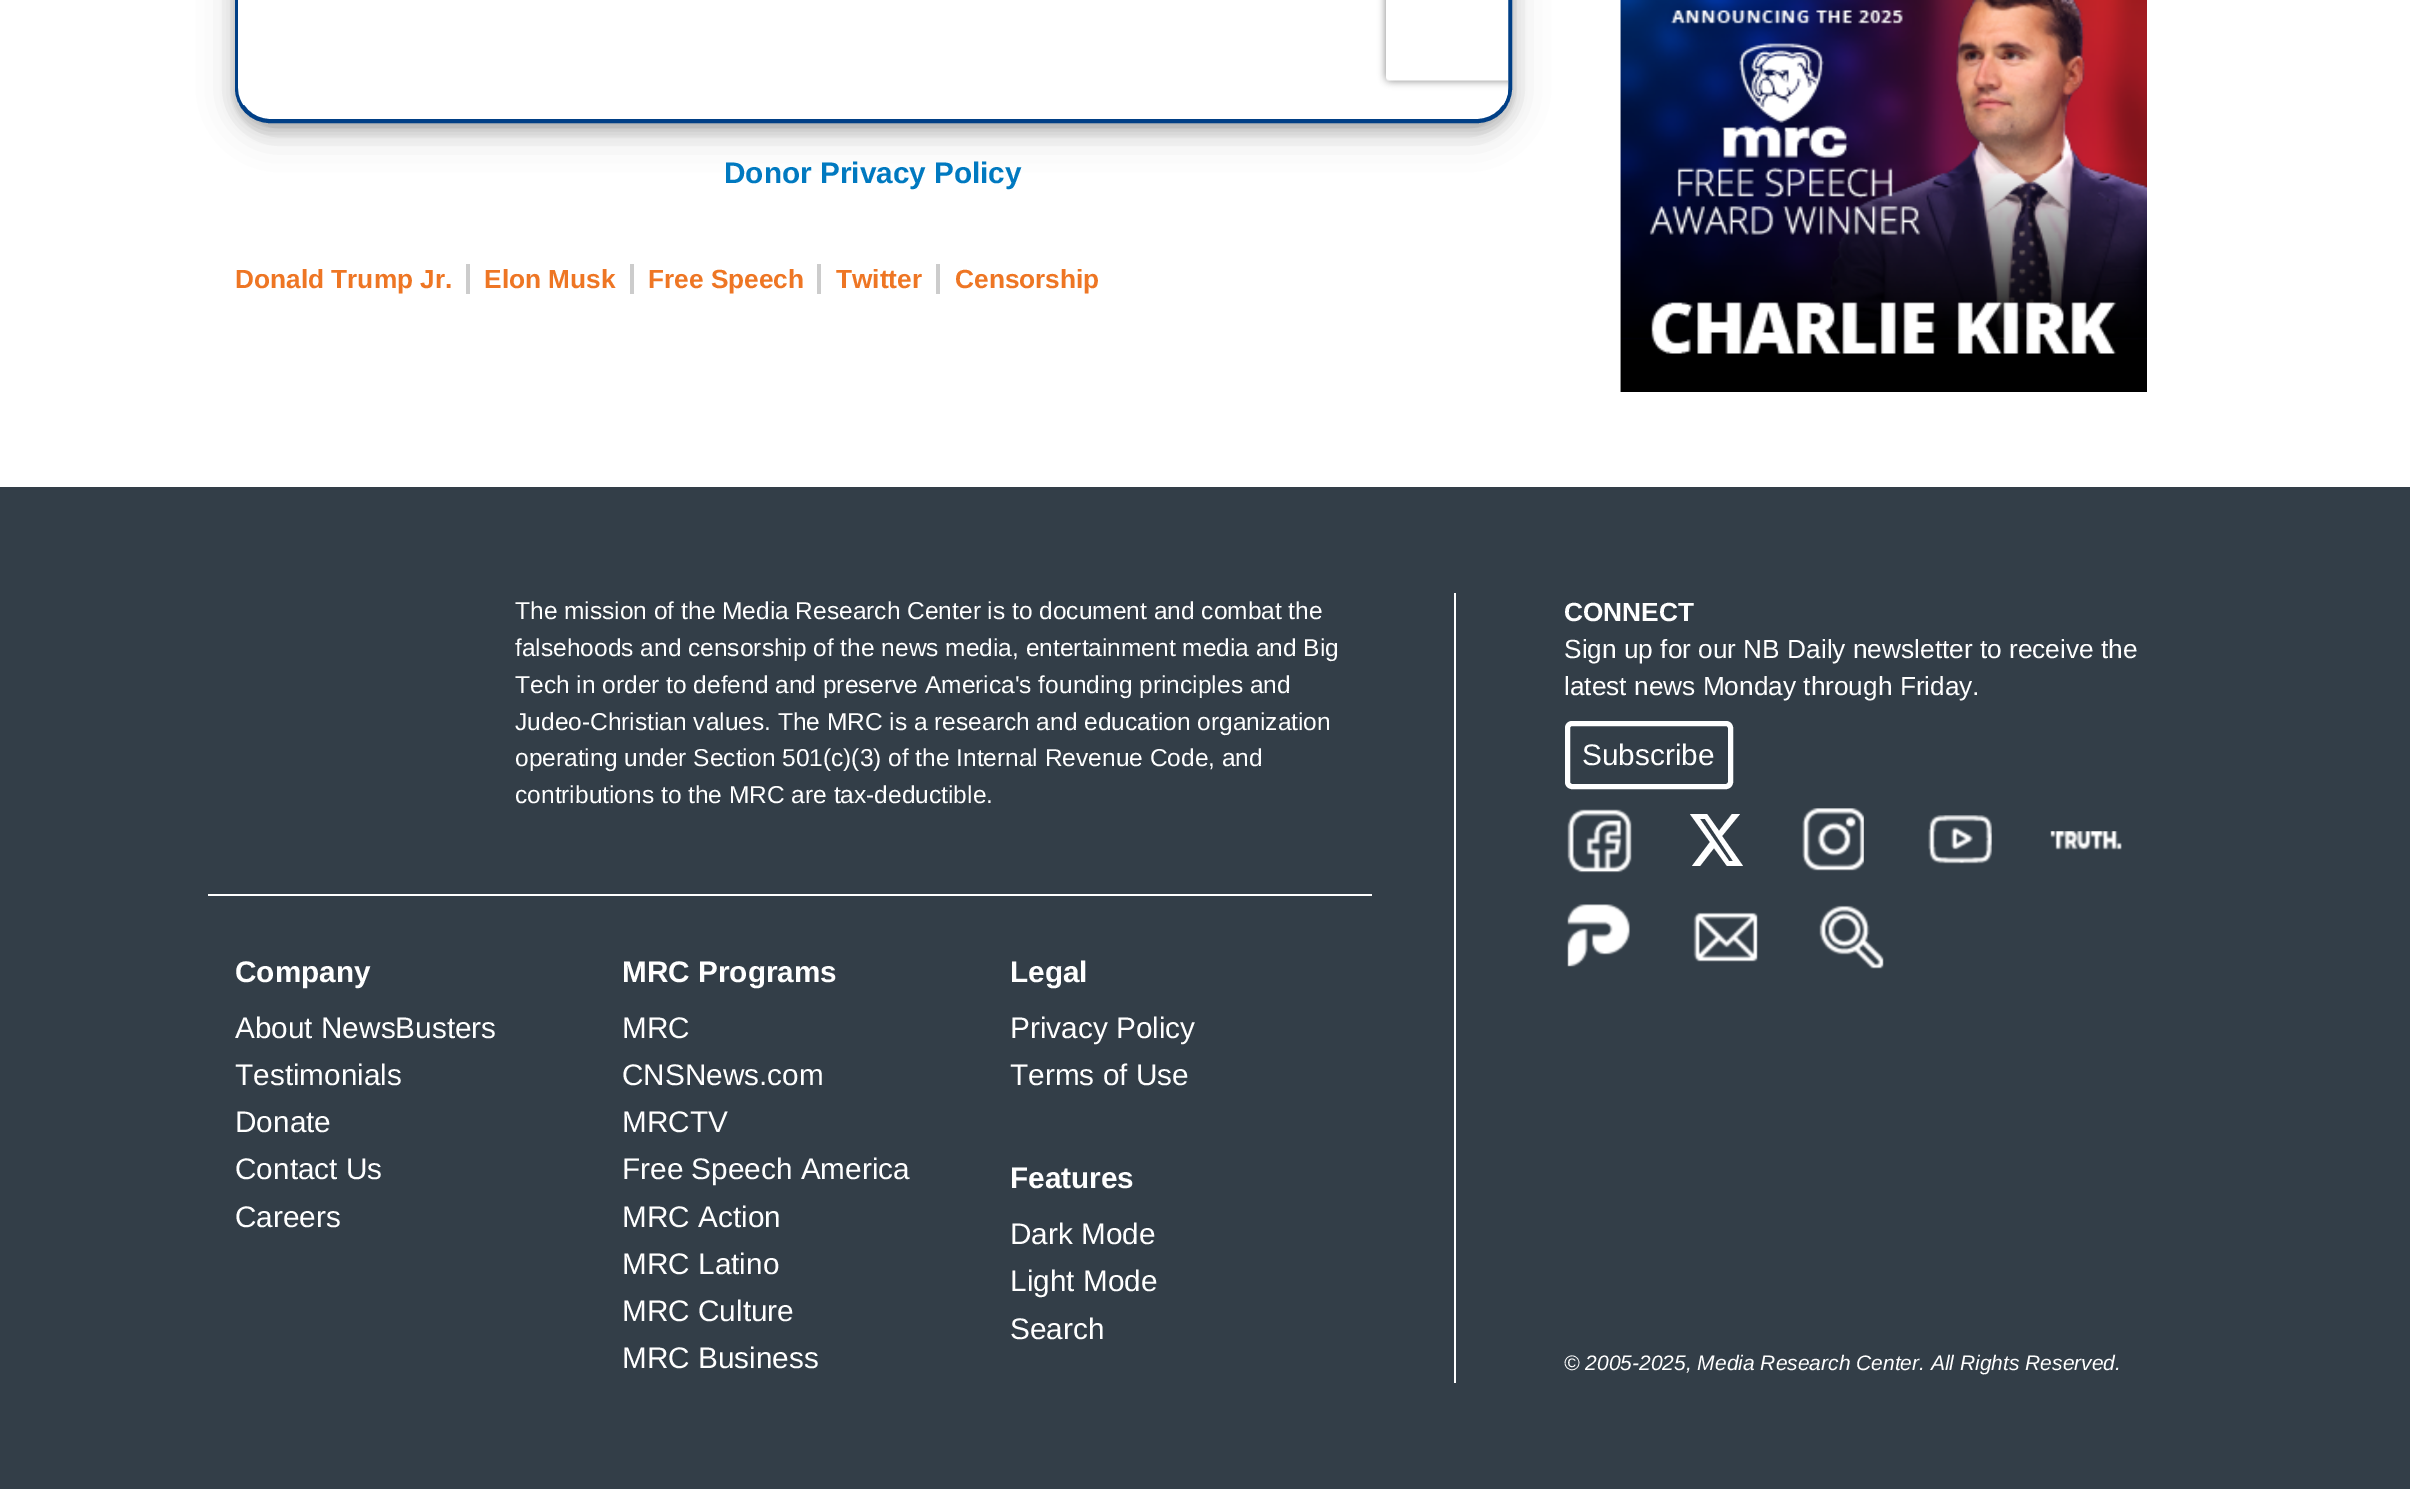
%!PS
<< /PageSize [2410 1489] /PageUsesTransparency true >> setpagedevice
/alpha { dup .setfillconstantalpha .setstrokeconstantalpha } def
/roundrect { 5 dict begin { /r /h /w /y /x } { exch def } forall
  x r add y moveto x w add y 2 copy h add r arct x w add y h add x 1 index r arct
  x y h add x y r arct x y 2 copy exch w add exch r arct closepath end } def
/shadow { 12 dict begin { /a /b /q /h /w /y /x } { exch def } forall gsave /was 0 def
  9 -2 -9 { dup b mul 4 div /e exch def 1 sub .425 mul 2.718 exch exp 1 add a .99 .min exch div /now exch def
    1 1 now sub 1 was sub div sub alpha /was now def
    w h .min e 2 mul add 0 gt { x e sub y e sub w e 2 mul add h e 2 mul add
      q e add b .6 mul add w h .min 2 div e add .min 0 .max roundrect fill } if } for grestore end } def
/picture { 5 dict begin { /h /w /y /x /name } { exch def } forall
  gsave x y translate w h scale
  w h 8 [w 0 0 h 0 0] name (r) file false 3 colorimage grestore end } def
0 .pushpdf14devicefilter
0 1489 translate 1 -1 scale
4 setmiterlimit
1 setgray
0 0 2410 1489 rectfill
0 setgray
235 -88 1277 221 35 17.5 0.19 shadow
235 -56 1277 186 35 7 0.2 shadow
1 setgray
237 -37 1273 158 33 roundrect gsave fill grestore
0 0.247 0.525 setrgbcolor
4 setlinewidth
stroke
(img1.rgb) 238 0 1271 105 picture
/LiberationSans-Bold [29.75 0 0 -29.75 0 0] selectfont
0 0.475 0.753 setrgbcolor
724 183 moveto (Donor Privacy Policy) show
/LiberationSans-Bold [26.25 0 0 -26.25 0 0] selectfont
0.933 0.463 0.141 setrgbcolor
235 288 moveto (Donald Trump Jr.) show
0.8 setgray
466 264 4 30 rectfill
0.933 0.463 0.141 setrgbcolor
484 288 moveto (Elon Musk) show
0.8 setgray
630 264 4 30 rectfill
0.933 0.463 0.141 setrgbcolor
648 288 moveto (Free Speech) show
0.8 setgray
817 264 4 30 rectfill
0.933 0.463 0.141 setrgbcolor
836 288 moveto (Twitter) show
0.8 setgray
936 264 4 30 rectfill
0.933 0.463 0.141 setrgbcolor
955 288 moveto (Censorship) show
(img2.rgb) 1620 0 527 392 picture
0.2 0.243 0.282 setrgbcolor
0 487 2410 1002 rectfill
1 setgray
208 894 1164 2 rectfill
/LiberationSans-Regular [24.5 0 0 -24.5 0 0] selectfont
515 619 moveto (The mission of the Media Research Center is to document and combat the) show
515 656 moveto (falsehoods and censorship of the news media, entertainment media and Big) show
515 693 moveto (Tech in order to defend and preserve America's founding principles and) show
515 730 moveto (Judeo-Christian values. The MRC is a research and education organization) show
515 766 moveto (operating under Section 501\(c\)\(3\) of the Internal Revenue Code, and) show
515 803 moveto (contributions to the MRC are tax-deductible.) show
/LiberationSans-Bold [29.75 0 0 -29.75 0 0] selectfont
235 982 moveto (Company) show
/LiberationSans-Regular [29.75 0 0 -29.75 0 0] selectfont
235 1038 moveto (About NewsBusters) show
235 1085 moveto (Testimonials) show
235 1132 moveto (Donate) show
235 1179 moveto (Contact Us) show
235 1227 moveto (Careers) show
/LiberationSans-Bold [29.75 0 0 -29.75 0 0] selectfont
622 982 moveto (MRC Programs) show
/LiberationSans-Regular [29.75 0 0 -29.75 0 0] selectfont
622 1038 moveto (MRC) show
622 1085 moveto (CNSNews.com) show
622 1132 moveto (MRCTV) show
622 1179 moveto (Free Speech America) show
622 1227 moveto (MRC Action) show
622 1274 moveto (MRC Latino) show
622 1321 moveto (MRC Culture) show
622 1368 moveto (MRC Business) show
/LiberationSans-Bold [29.75 0 0 -29.75 0 0] selectfont
1010 982 moveto (Legal) show
/LiberationSans-Regular [29.75 0 0 -29.75 0 0] selectfont
1010 1038 moveto (Privacy Policy) show
1010 1085 moveto (Terms of Use) show
/LiberationSans-Bold [29.75 0 0 -29.75 0 0] selectfont
1010 1188 moveto (Features) show
/LiberationSans-Regular [29.75 0 0 -29.75 0 0] selectfont
1010 1244 moveto (Dark Mode) show
1010 1291 moveto (Light Mode) show
1010 1339 moveto (Search) show
1454 593 2 790 rectfill
/LiberationSans-Bold [26.25 0 0 -26.25 0 0] selectfont
1564 621 moveto (CONNECT) show
/LiberationSans-Regular [26.25 0 0 -26.25 0 0] selectfont
1564 658 moveto (Sign up for our NB Daily newsletter to receive the) show
1564 695 moveto (latest news Monday through Friday.) show
5 setlinewidth
1567.5 723.5 163 63 4.5 roundrect stroke
/LiberationSans-Regular [29.75 0 0 -29.75 0 0] selectfont
1582 765 moveto (Subscribe) show
(img3.rgb) 1567 809 65 64 picture
newpath 1732 814 moveto 1740 814 lineto 1722 836 lineto 1743 866 lineto 1727 866 lineto 1714 848 lineto 1700 866 lineto 1692 866 lineto 1710 842 lineto 1690 814 lineto 1707 814 lineto 1719 831 lineto closepath 1729 861 moveto 1733 861 lineto 1705 819 lineto 1700 819 lineto closepath fill
(img4.rgb) 1802 808 62 63 picture
(img5.rgb) 1928 815 64 49 picture
(img6.rgb) 2050 831 72 19 picture
(img7.rgb) 1567 904 63 63 picture
(img8.rgb) 1693 912 65 50 picture
(img9.rgb) 1819 905 65 64 picture
/LiberationSans-Italic [21 0 0 -21 0 0] selectfont
1564 1370 moveto (© 2005-2025, Media Research Center. All Rights Reserved.) show
.poppdf14devicefilter showpage
